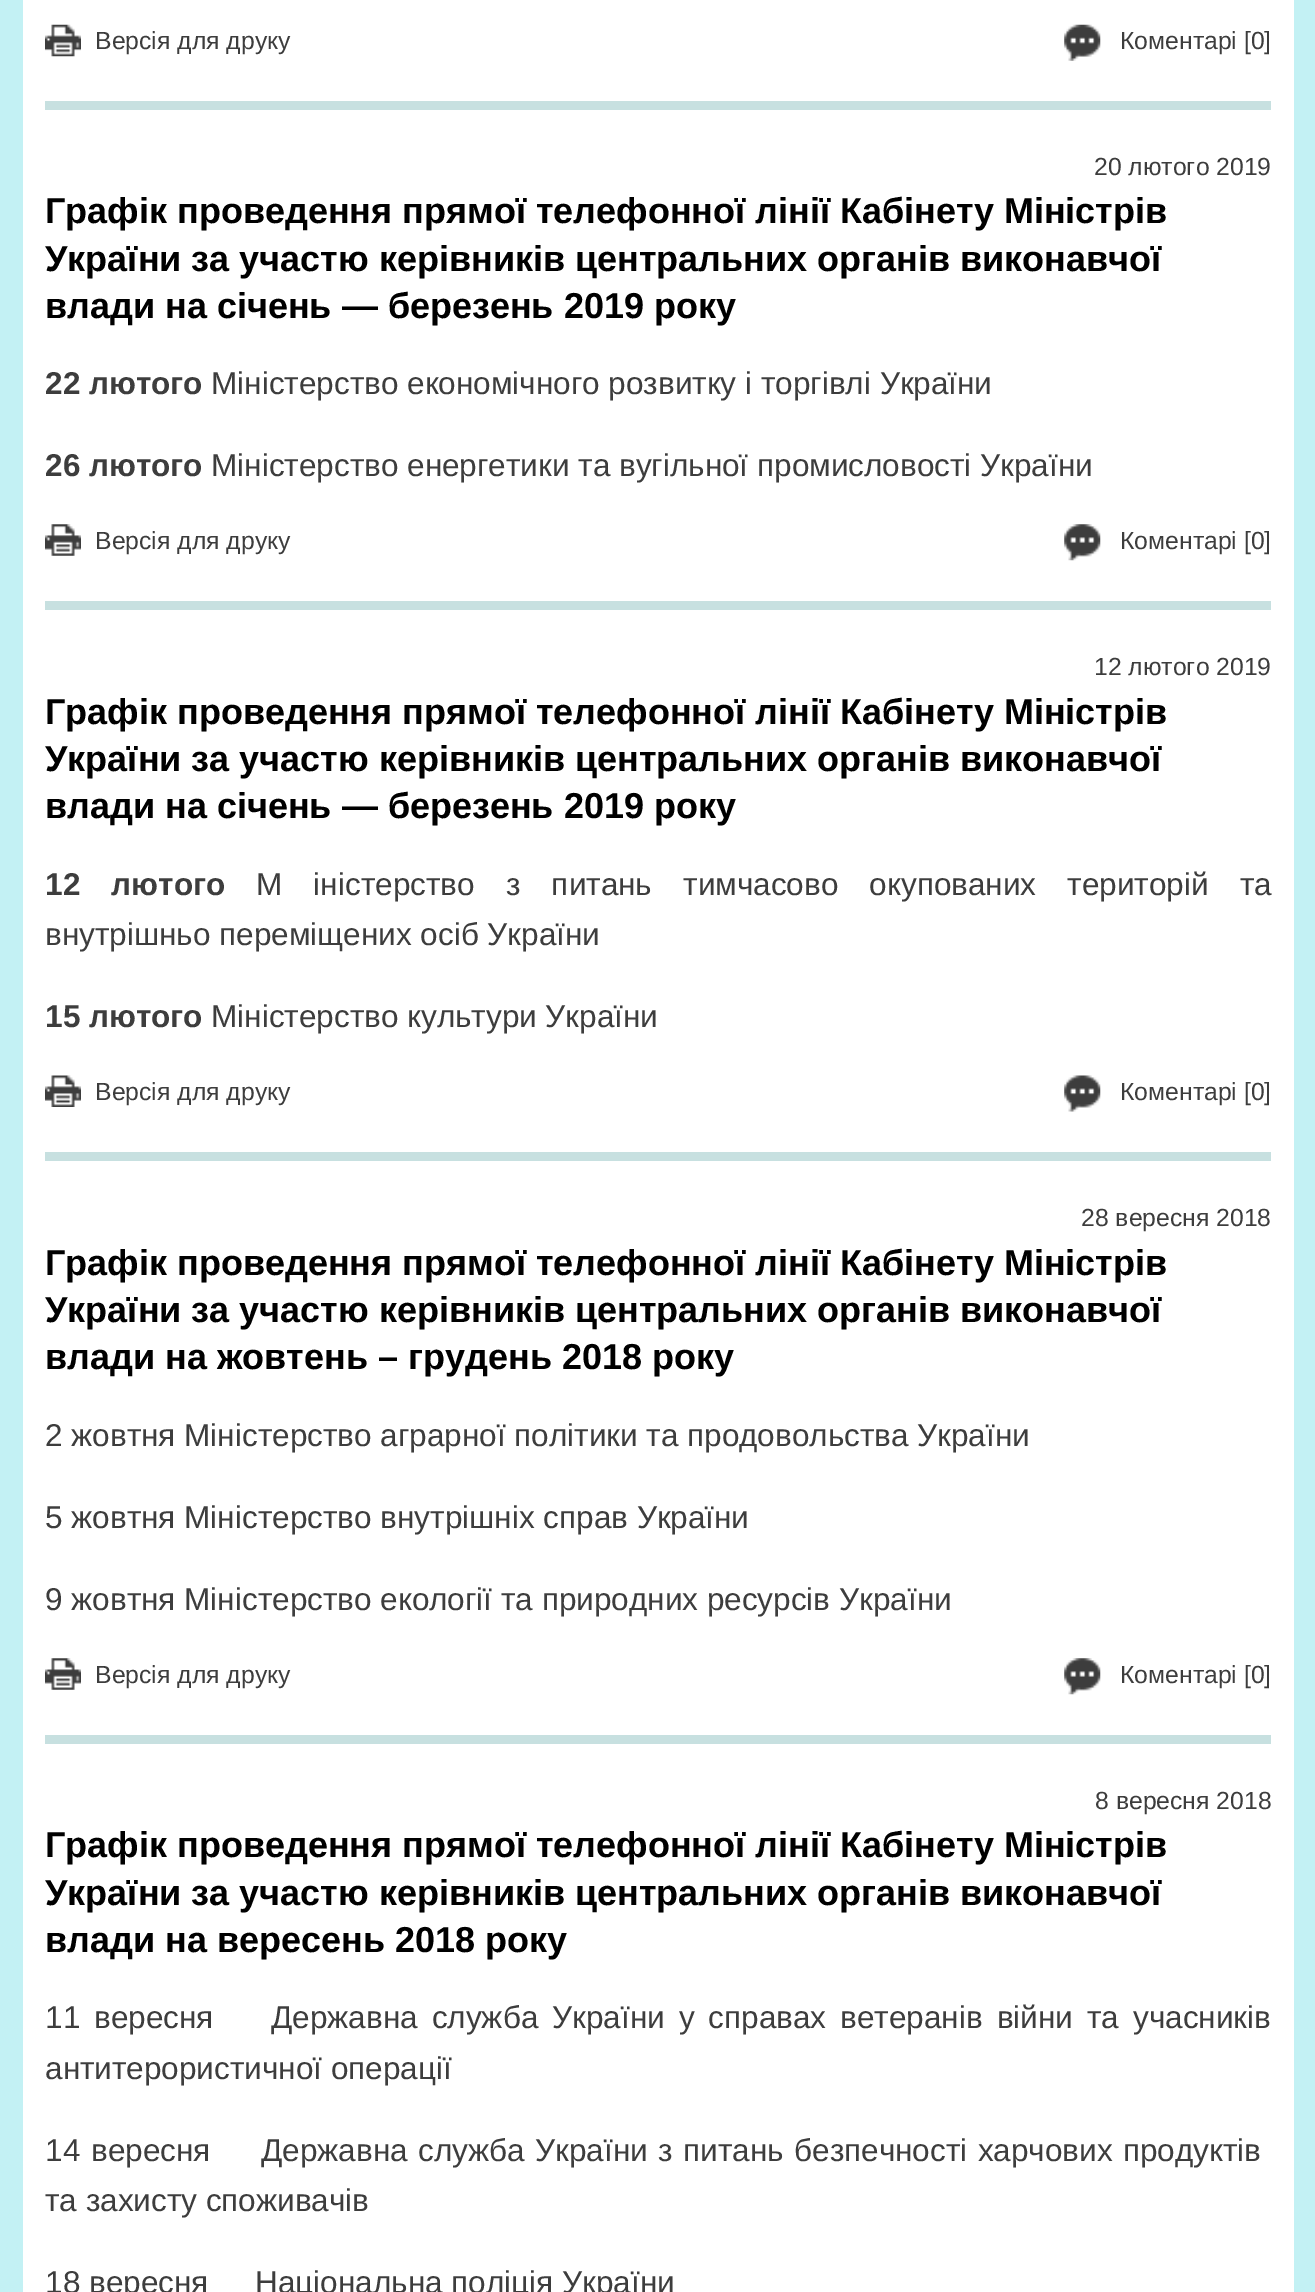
%!PS
<< /PageSize [1315 2292] >> setpagedevice
/picture { 5 dict begin { /h /w /y /x /name } { exch def } forall
  gsave x y translate w h scale
  w h 8 [w 0 0 h 0 0] name (r) file false 3 colorimage grestore end } def
0 2292 translate 1 -1 scale
4 setmiterlimit
0.765 0.945 0.957 setrgbcolor
0 0 1315 2292 rectfill
1 setgray
23 0 1271 2292 rectfill
(img1.rgb) 45 24 36 33 picture
/LiberationSans-Regular [24.75 0 0 -24.75 0 0] selectfont
0.239 setgray
95 49 moveto (Версія для друку) show
(img2.rgb) 1064 24 37 37 picture
1120 49 moveto (Коментарі [0]) show
0.78 0.878 0.878 setrgbcolor
45 101 1226 9 rectfill
0.239 setgray
1094 175 moveto (20 лютого 2019) show
/LiberationSans-Bold [36 0 0 -36 0 0] selectfont
0 setgray
45 223 moveto (Графік проведення прямої телефонної лінії Кабінету Міністрів) show
45 271 moveto (України за участю керівників центральних органів виконавчої) show
45 318 moveto (влади на січень — березень 2019 року) show
/LiberationSans-Bold [31.5 0 0 -31.5 0 0] selectfont
0.239 setgray
45 394 moveto (22 лютого) show
/LiberationSans-Regular [31.5 0 0 -31.5 0 0] selectfont
211 394 moveto (Міністерство економічного розвитку і торгівлі України) show
/LiberationSans-Bold [31.5 0 0 -31.5 0 0] selectfont
45 476 moveto (26 лютого) show
/LiberationSans-Regular [31.5 0 0 -31.5 0 0] selectfont
211 476 moveto (Міністерство енергетики та вугільної промисловості України) show
(img3.rgb) 45 524 36 32 picture
/LiberationSans-Regular [24.75 0 0 -24.75 0 0] selectfont
95 549 moveto (Версія для друку) show
(img4.rgb) 1064 524 37 37 picture
1120 549 moveto (Коментарі [0]) show
0.78 0.878 0.878 setrgbcolor
45 601 1226 9 rectfill
0.239 setgray
1094 675 moveto (12 лютого 2019) show
/LiberationSans-Bold [36 0 0 -36 0 0] selectfont
0 setgray
45 724 moveto (Графік проведення прямої телефонної лінії Кабінету Міністрів) show
45 771 moveto (України за участю керівників центральних органів виконавчої) show
45 818 moveto (влади на січень — березень 2019 року) show
/LiberationSans-Bold [31.5 0 0 -31.5 0 0] selectfont
0.239 setgray
45 895 moveto 22.5 0 32 (12 лютого) widthshow
/LiberationSans-Regular [31.5 0 0 -31.5 0 0] selectfont
256 895 moveto 22.5 0 32 (М іністерство з питань тимчасово окупованих територій та) widthshow
45 945 moveto (внутрішньо переміщених осіб України) show
/LiberationSans-Bold [31.5 0 0 -31.5 0 0] selectfont
45 1027 moveto (15 лютого) show
/LiberationSans-Regular [31.5 0 0 -31.5 0 0] selectfont
211 1027 moveto (Міністерство культури України) show
(img5.rgb) 45 1075 36 32 picture
/LiberationSans-Regular [24.75 0 0 -24.75 0 0] selectfont
95 1100 moveto (Версія для друку) show
(img6.rgb) 1064 1075 37 37 picture
1120 1100 moveto (Коментарі [0]) show
0.78 0.878 0.878 setrgbcolor
45 1152 1226 9 rectfill
0.239 setgray
1081 1226 moveto (28 вересня 2018) show
/LiberationSans-Bold [36 0 0 -36 0 0] selectfont
0 setgray
45 1275 moveto (Графік проведення прямої телефонної лінії Кабінету Міністрів) show
45 1322 moveto (України за участю керівників центральних органів виконавчої) show
45 1369 moveto (влади на жовтень – грудень 2018 року) show
/LiberationSans-Regular [31.5 0 0 -31.5 0 0] selectfont
0.239 setgray
45 1446 moveto (2 жовтня Міністерство аграрної політики та продовольства України) show
45 1528 moveto (5 жовтня Міністерство внутрішніх справ України) show
45 1610 moveto (9 жовтня Міністерство екології та природних ресурсів України) show
(img7.rgb) 45 1658 36 32 picture
/LiberationSans-Regular [24.75 0 0 -24.75 0 0] selectfont
95 1683 moveto (Версія для друку) show
(img8.rgb) 1064 1658 37 37 picture
1120 1683 moveto (Коментарі [0]) show
0.78 0.878 0.878 setrgbcolor
45 1735 1226 9 rectfill
0.239 setgray
1095 1809 moveto (8 вересня 2018) show
/LiberationSans-Bold [36 0 0 -36 0 0] selectfont
0 setgray
45 1857 moveto (Графік проведення прямої телефонної лінії Кабінету Міністрів) show
45 1905 moveto (України за участю керівників центральних органів виконавчої) show
45 1952 moveto (влади на вересень 2018 року) show
/LiberationSans-Regular [31.5 0 0 -31.5 0 0] selectfont
0.239 setgray
45 2028 moveto 5.25 0 32 (11 вересня) widthshow
271 2028 moveto 5.25 0 32 (Державна служба України у справах ветеранів війни та учасників) widthshow
45 2079 moveto (антитерористичної операції) show
45 2161 moveto 2 0 32 (14 вересня) widthshow
261 2161 moveto 1.75 0 32 (Державна служба України з питань безпечності харчових продуктів) widthshow
45 2211 moveto (та захисту споживачів) show
45 2293 moveto (18 вересня) show
255 2293 moveto (Національна поліція України) show
showpage
